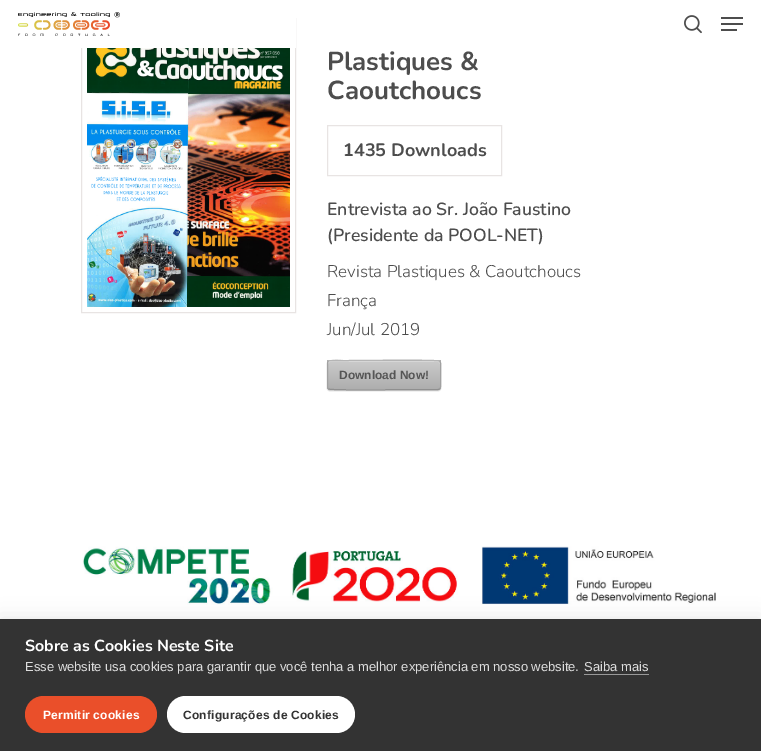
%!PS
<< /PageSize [761 751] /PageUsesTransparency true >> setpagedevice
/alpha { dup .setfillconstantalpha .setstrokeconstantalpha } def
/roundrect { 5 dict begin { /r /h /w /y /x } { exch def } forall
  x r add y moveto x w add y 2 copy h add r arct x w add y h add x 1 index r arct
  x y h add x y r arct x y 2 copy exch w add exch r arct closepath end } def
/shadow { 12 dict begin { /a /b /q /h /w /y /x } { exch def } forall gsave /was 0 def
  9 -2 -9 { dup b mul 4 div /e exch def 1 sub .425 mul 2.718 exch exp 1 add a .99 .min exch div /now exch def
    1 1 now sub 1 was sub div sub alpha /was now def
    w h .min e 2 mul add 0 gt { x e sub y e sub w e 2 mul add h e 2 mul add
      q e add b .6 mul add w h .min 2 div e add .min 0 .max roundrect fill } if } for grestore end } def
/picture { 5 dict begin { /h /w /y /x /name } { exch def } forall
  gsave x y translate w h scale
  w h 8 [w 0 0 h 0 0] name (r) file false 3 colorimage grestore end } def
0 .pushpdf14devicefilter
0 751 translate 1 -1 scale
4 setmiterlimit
1 setgray
0 0 761 751 rectfill
0.91 0.894 0.89 setrgbcolor
81.5 18.5 214 294 rectstroke
1 setgray
81 18 215 30 rectfill
(img1.rgb) 18 12 102 24 picture
(img2.rgb) 684 15 18 19 picture
0.302 setgray
721 17 22 2 rectfill
721 29 16 2 rectfill
721 23 22 2 rectfill
(img3.rgb) 87 48 203 259 picture
/Nunito-Bold [26 0 0 -26 0 0] selectfont
327 70 moveto (Plastiques &) show
327 99 moveto (Caoutchoucs) show
0.91 0.894 0.89 setrgbcolor
327.5 125.5 174 50 rectstroke
/Nunito-Bold [18 0 0 -18 0 0] selectfont
0.302 setgray
343 156 moveto (1435 Downloads) show
/Nunito-SemiBold [17.6 0 0 -17.6 0 0] selectfont
327 215 moveto (Entrevista ao Sr. João Faustino) show
327 241 moveto (\(Presidente da POOL-NET\)) show
/Nunito-Light [17 0 0 -17 0 0] selectfont
327 277 moveto (Revista Plastiques & Caoutchoucs) show
327 306 moveto (França) show
327 335 moveto (Jun/Jul 2019) show
0.788 setgray
327 361 114 30 3 0.5 1 shadow
gsave
327 360 114 30 3 roundrect clip newpath
gsave newpath 327 360 moveto 441 360 lineto 441 361 lineto 327 361 lineto closepath clip newpath
<< /ShadingType 2 /ColorSpace /DeviceRGB /Coords [328 333 328 361] /Extend [true true] /Function << /FunctionType 2 /Domain [0 1] /C0 [0.792 0.792 0.792] /C1 [0.682 0.682 0.682] /N 1 >> >> shfill grestore
gsave newpath 327 361 moveto 441 361 lineto 441 389 lineto 327 389 lineto closepath clip newpath
<< /ShadingType 2 /ColorSpace /DeviceRGB /Coords [328 361 328 389] /Extend [true true] /Function << /FunctionType 2 /Domain [0 1] /C0 [0.792 0.792 0.792] /C1 [0.682 0.682 0.682] /N 1 >> >> shfill grestore
grestore
0.843 setgray
newpath 330 362 moveto 438 362 lineto 439 362 440 363 440 364 curveto 440 363 440 361 438 361 curveto 348 361 lineto 348 361 328 356 328 364 curveto 328 363 329 362 330 362 curveto closepath fill
0.71 setgray
newpath 328 361 moveto 330 360.5 lineto 348 360.5 lineto 357 360.5 437.5 359.5 439.5 361 curveto 440 361 lineto stroke
0.631 setgray
newpath 440 361 moveto 440 361.5 440.5 362.5 440.5 363 curveto 440.5 387 lineto 440.5 387.5 440 388.5 440 389 curveto stroke
0.561 setgray
newpath 440 389 moveto 438 389.5 lineto 420 389.5 lineto 411 389.5 330.5 390.5 328.5 389 curveto 328 389 lineto stroke
0.631 setgray
newpath 328 389 moveto 328 388.5 327.5 387.5 327.5 387 curveto 327.5 363 lineto 327.5 362.5 328 361.5 328 361 curveto stroke
/LiberationSans-Bold [12 0 0 -12 0 0] selectfont
0.333 setgray
339 379 moveto (Download Now!) show
(img4.rgb) 82 546 634 59 picture
0 setgray
0 619 761 132 0 10 0.1 shadow
0.2 setgray
0 619 761 132 rectfill
/Nunito-Bold [16 0 0 -16 0 0] selectfont
1 setgray
25 651 moveto (Sobre as Cookies Neste Site) show
/LiberationSans-Regular [13 0 0 -13 0 0] selectfont
0.867 setgray
25 671 moveto (Esse website usa cookies para garantir que você tenha a melhor experiência em nosso website.) show
584 671 moveto (Saiba mais) show
0.6 setgray
584 674 65 1 rectfill
0.918 0.31 0.165 setrgbcolor
25 696 132 37 18.5 roundrect fill
/LiberationSans-Bold [12 0 0 -12 0 0] selectfont
1 setgray
43 719 moveto 0.2 0 (Permitir cookies) ashow
167 696 188 37 18.5 roundrect fill
0.2 setgray
183 719 moveto 0.2 0 (Configurações de Cookies) ashow
.poppdf14devicefilter showpage
